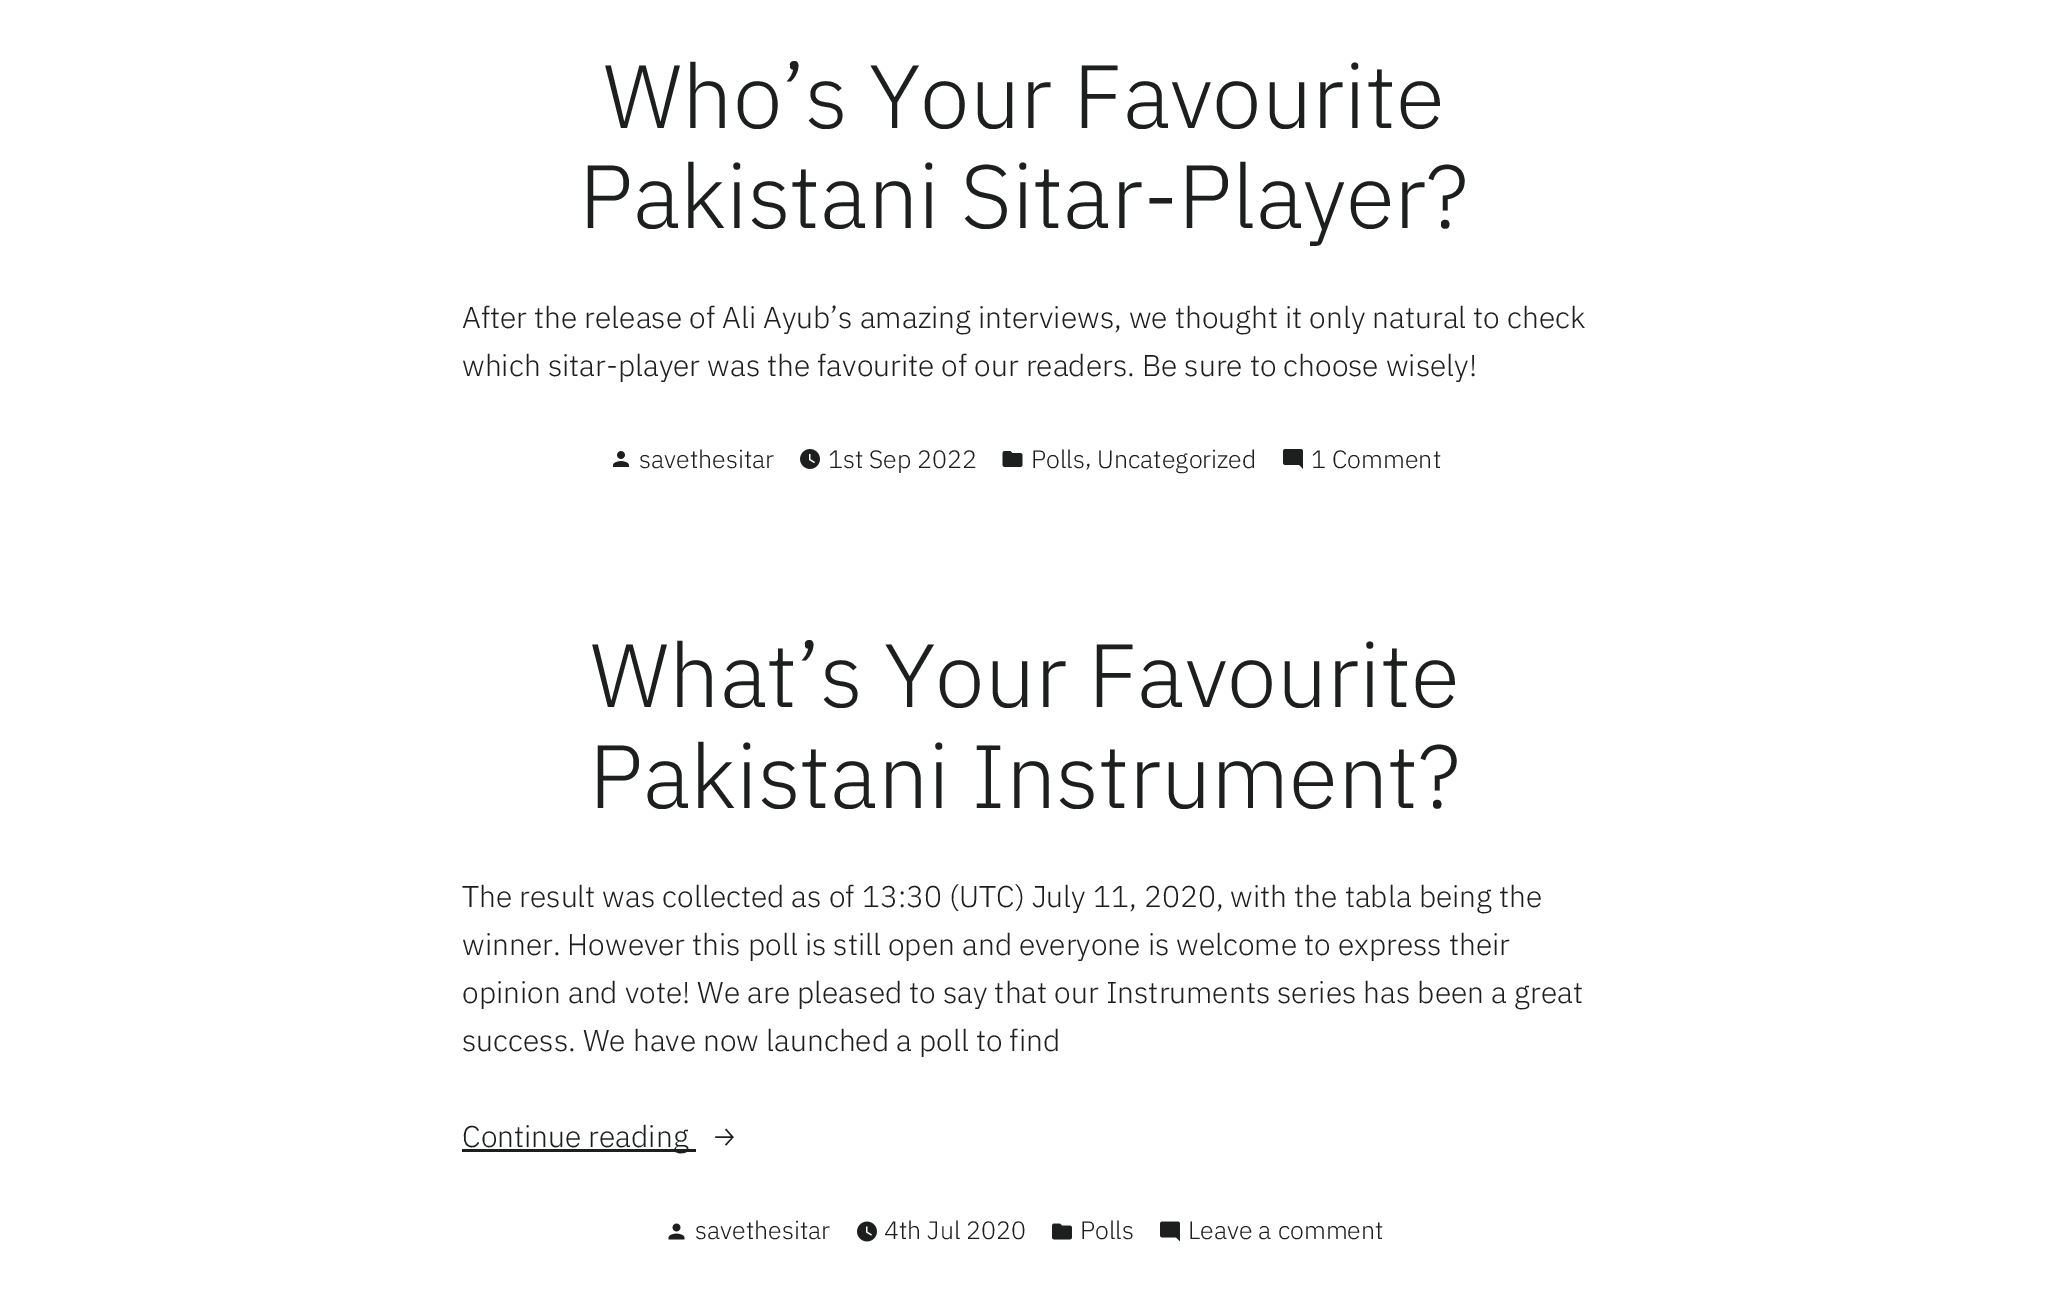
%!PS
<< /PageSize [2048 1314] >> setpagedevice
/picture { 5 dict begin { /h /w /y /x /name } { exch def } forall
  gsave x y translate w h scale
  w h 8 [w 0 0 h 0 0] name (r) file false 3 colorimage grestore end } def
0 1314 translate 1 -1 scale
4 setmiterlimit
1 setgray
0 0 2048 1314 rectfill
/IBMPlexSans-Light [89.5 0 0 -89.5 0 0] selectfont
0.114 0.118 0.118 setrgbcolor
603 128 moveto (Who’s Your Favourite) show
579 228 moveto (Pakistani Sitar-Player?) show
/IBMPlexSans-Light [30 0 0 -30 0 0] selectfont
462 328 moveto (After the release of Ali Ayub’s amazing interviews, we thought it only natural to check) show
462 376 moveto (which sitar-player was the favourite of our readers. Be sure to choose wisely!) show
(img1.rgb) 613 451 16 16 picture
/IBMPlexSans-Light [25 0 0 -25 0 0] selectfont
639 468 moveto (savethesitar) show
(img2.rgb) 800 449 20 20 picture
828 468 moveto (1st Sep 2022) show
(img3.rgb) 1002 451 21 16 picture
1031 468 moveto (Polls) show
1085 466 moveto (,) show
1097 468 moveto (Uncategorized) show
(img4.rgb) 1283 449 20 20 picture
1311 468 moveto (1 Comment) show
/IBMPlexSans-Light [89.5 0 0 -89.5 0 0] selectfont
590 707 moveto (What’s Your Favourite) show
589 808 moveto (Pakistani Instrument?) show
/IBMPlexSans-Light [30 0 0 -30 0 0] selectfont
462 907 moveto (The result was collected as of 13:30 \(UTC\) July 11, 2020, with the tabla being the) show
462 955 moveto (winner. However this poll is still open and everyone is welcome to express their) show
462 1003 moveto (opinion and vote! We are pleased to say that our Instruments series has been a great) show
462 1051 moveto (success. We have now launched a poll to find) show
462 1149 234 3 rectfill
462 1147 moveto (Continue reading) show
/FiraSans-Light [30 0 0 -30 0 0] selectfont
711 1147 moveto (→) show
(img5.rgb) 668 1223 17 17 picture
/IBMPlexSans-Light [25 0 0 -25 0 0] selectfont
695 1239 moveto (savethesitar) show
(img6.rgb) 857 1221 20 21 picture
884 1239 moveto (4th Jul 2020) show
(img7.rgb) 1052 1223 20 17 picture
1080 1239 moveto (Polls) show
(img8.rgb) 1160 1221 20 21 picture
1188 1239 moveto (Leave a comment) show
showpage
